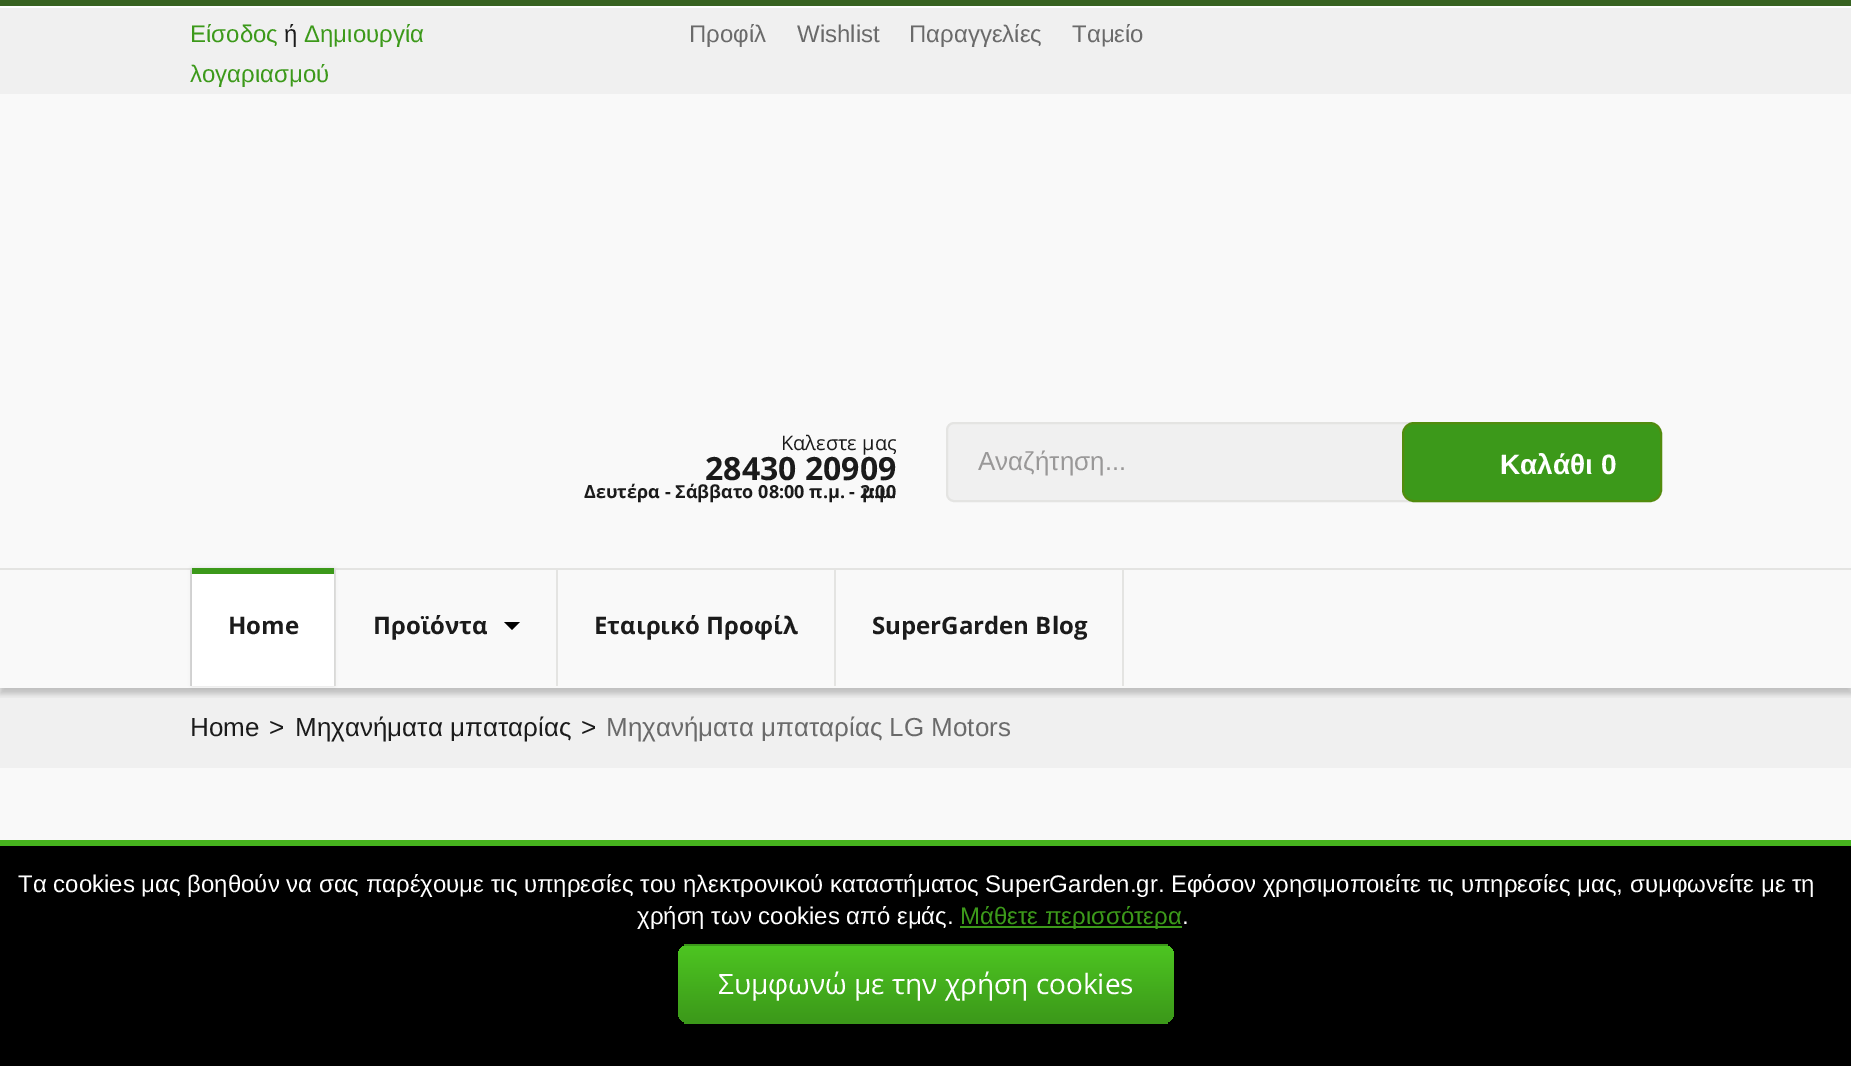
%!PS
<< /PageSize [1851 1066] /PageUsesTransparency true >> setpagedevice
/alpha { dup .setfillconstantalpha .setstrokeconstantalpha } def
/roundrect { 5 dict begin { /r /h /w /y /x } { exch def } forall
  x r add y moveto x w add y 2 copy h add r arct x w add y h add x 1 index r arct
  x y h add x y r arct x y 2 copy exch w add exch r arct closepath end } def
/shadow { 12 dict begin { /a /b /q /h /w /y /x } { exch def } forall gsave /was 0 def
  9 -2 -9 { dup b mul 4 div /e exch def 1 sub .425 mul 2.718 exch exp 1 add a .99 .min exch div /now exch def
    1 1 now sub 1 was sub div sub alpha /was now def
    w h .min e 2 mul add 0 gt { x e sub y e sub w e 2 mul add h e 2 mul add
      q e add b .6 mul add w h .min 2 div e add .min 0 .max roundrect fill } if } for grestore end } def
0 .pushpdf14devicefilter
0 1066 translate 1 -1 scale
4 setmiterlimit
0.941 setgray
0 0 1851 1066 rectfill
0.22 0.388 0.133 setrgbcolor
0 0 1851 6 rectfill
1 setgray
0 6 1851 2 rectfill
/LiberationSans-Regular [24 0 0 -24 0 0] selectfont
0.235 0.6 0.102 setrgbcolor
190 42 moveto (Είσοδος) show
0.106 setgray
284 42 moveto (ή) show
0.235 0.6 0.102 setrgbcolor
304 42 moveto (Δημιουργία) show
190 82 moveto (λογαριασμού) show
0.416 setgray
689 42 moveto (Προφίλ) show
797 42 moveto (Wishlist) show
909 42 moveto (Παραγγελίες) show
1072 42 moveto (Ταμείο) show
0.976 setgray
0 94 1851 594 rectfill
/OpenSans-Regular [20 0 0 -20 0 0] selectfont
0.106 setgray
781 450 moveto (Καλεστε μας) show
/OpenSans-Bold [32 0 0 -32 0 0] selectfont
705 480 moveto (28430 20909) show
/OpenSans-Bold [18 0 0 -18 0 0] selectfont
584 498 moveto (Δευτέρα - Σάββατο 08:00 π.μ. - 2:00) show
862 498 moveto (μ.μ.) show
0.941 setgray
947 423 598 78 7 roundrect gsave fill grestore
0.894 0.894 0.886 setrgbcolor
2 setlinewidth
stroke
/LiberationSans-Regular [26 0 0 -26 0 0] selectfont
0.6 0.596 0.596 setrgbcolor
978 470 moveto (Αναζήτηση...) show
0.235 0.6 0.102 setrgbcolor
1403 423 258 78 11 roundrect gsave fill grestore
0.318 0.549 0.055 setrgbcolor
stroke
/LiberationSans-Bold [28 0 0 -28 0 0] selectfont
1 setgray
1500 474 moveto (Καλάθι 0) show
gsave
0 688 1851 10 rectclip
0 setgray
0 574 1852 120 0 3 0.2 shadow
grestore
0.894 0.894 0.886 setrgbcolor
0 568 1851 2 rectfill
0.851 setgray
190 570 2 116 rectfill
0.894 0.894 0.886 setrgbcolor
334 570 2 116 rectfill
0 setgray
192 568 142 118 0 2 0.1 shadow
1 setgray
192 574 142 112 rectfill
0.235 0.6 0.102 setrgbcolor
192 568 142 6 rectfill
/OpenSans-Bold [24 0 0 -24 0 0] selectfont
0.106 setgray
228 634 moveto (Home) show
0.894 0.894 0.886 setrgbcolor
556 570 2 116 rectfill
0.106 setgray
373 634 moveto (Προϊόντα) show
0 setgray
newpath 504 622 moveto 520 622 lineto 512 630 lineto closepath fill
0.894 0.894 0.886 setrgbcolor
834 570 2 116 rectfill
0.106 setgray
594 634 moveto (Εταιρικό Προφίλ) show
0.894 0.894 0.886 setrgbcolor
1122 570 2 116 rectfill
0.106 setgray
872 634 moveto (SuperGarden Blog) show
/LiberationSans-Regular [26 0 0 -26 0 0] selectfont
190 736 moveto (Home) show
269 736 moveto (>) show
295 736 moveto (Μηχανήματα μπαταρίας) show
581 736 moveto (>) show
0.416 setgray
606 736 moveto (Μηχανήματα μπαταρίας LG Motors) show
0.976 setgray
0 768 1851 72 rectfill
0 setgray
0 846 1851 220 rectfill
0.275 0.702 0.118 setrgbcolor
0 840 1851 6 rectfill
/LiberationSans-Regular [24 0 0 -24 0 0] selectfont
1 setgray
18 892 moveto (Τα cookies μας βοηθούν να σας παρέχουμε τις υπηρεσίες του ηλεκτρονικού καταστήματος SuperGarden.gr. Εφόσον χρησιμοποιείτε τις υπηρεσίες μας, συμφωνείτε με τη) show
637 924 moveto (χρήση των cookies από εμάς.) show
0.235 0.6 0.102 setrgbcolor
960 926 222 2 rectfill
960 924 moveto (Mάθετε περισσότερα) show
1 setgray
1182 924 moveto (.) show
gsave
678 944 496 80 12 roundrect clip newpath
gsave newpath 678 946 moveto 1174 946 lineto 1174 1022 lineto 678 1022 lineto closepath clip newpath
<< /ShadingType 2 /ColorSpace /DeviceRGB /Coords [926 946 926 1022] /Extend [true true] /Function << /FunctionType 2 /Domain [0 1] /C0 [0.302 0.773 0.129] /C1 [0.235 0.6 0.102] /N 1 >> >> shfill grestore
grestore
0.235 0.6 0.102 setrgbcolor
684 944 484 2 rectfill
684 1022 484 2 rectfill
/OpenSans-Regular [28 0 0 -28 0 0] selectfont
1 setgray
718 994 moveto (Συμφωνώ με την χρήση cookies) show
.poppdf14devicefilter showpage
